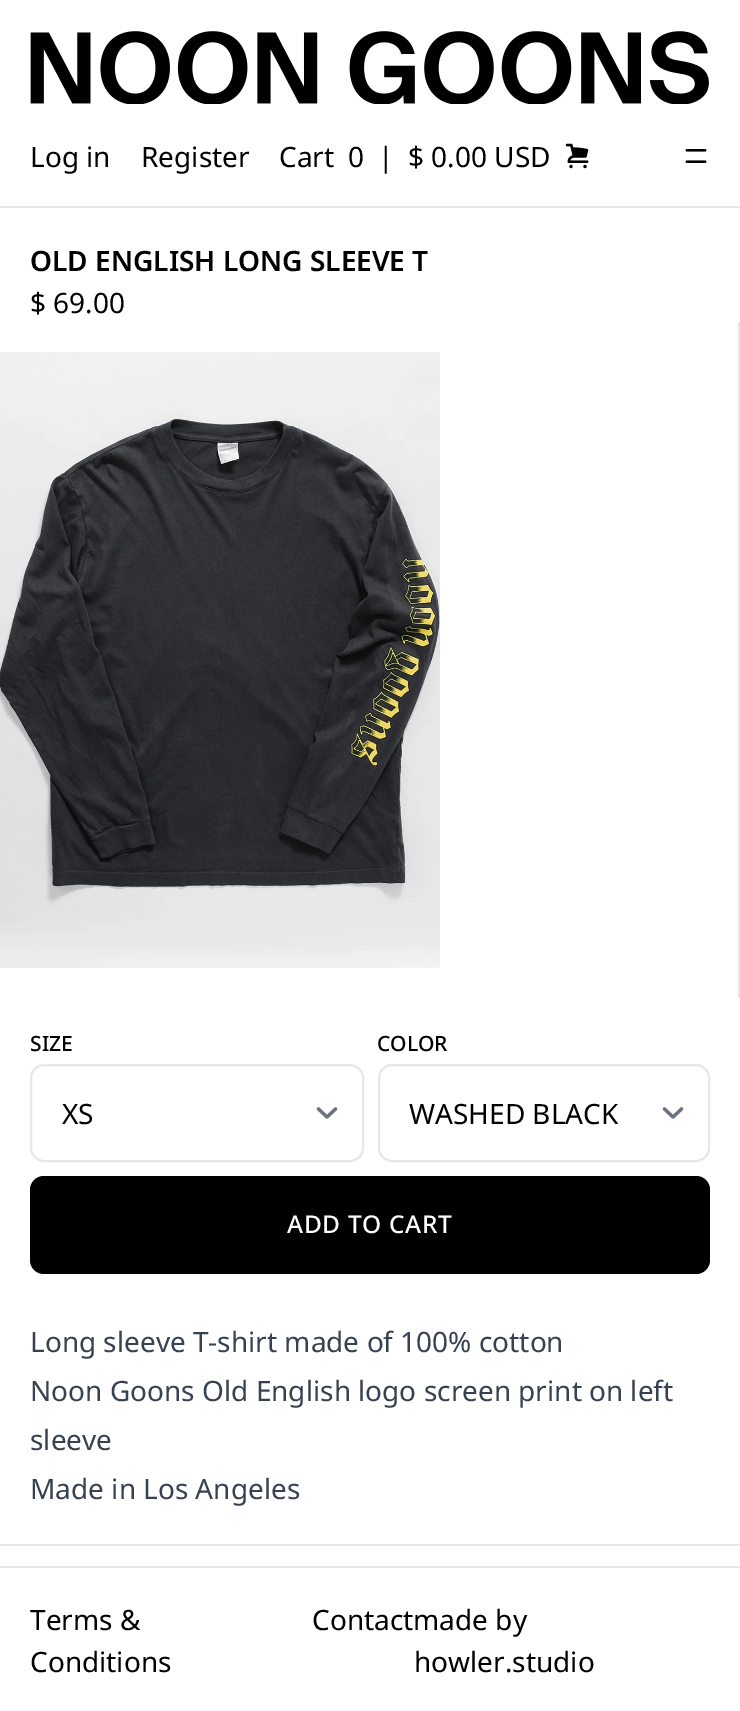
%!PS
<< /PageSize [740 1711] >> setpagedevice
/roundrect { 5 dict begin { /r /h /w /y /x } { exch def } forall
  x r add y moveto x w add y 2 copy h add r arct x w add y h add x 1 index r arct
  x y h add x y r arct x y 2 copy exch w add exch r arct closepath end } def
/picture { 5 dict begin { /h /w /y /x /name } { exch def } forall
  gsave x y translate w h scale
  w h 8 [w 0 0 h 0 0] name (r) file false 3 colorimage grestore end } def
0 1711 translate 1 -1 scale
4 setmiterlimit
1 setgray
0 0 740 1711 rectfill
0.898 0.906 0.922 setrgbcolor
0 206 740 2 rectfill
(img1.rgb) 30 31 679 73 picture
/NotoSans-Regular [28 0 0 -28 0 0] selectfont
0 setgray
30 167 moveto (Log in) show
141 167 moveto (Register) show
279 167 moveto (Cart) show
348 167 moveto (0) show
378 167 moveto (|) show
408 167 moveto ($ 0.00 USD) show
(img2.rgb) 565 143 24 26 picture
(img3.rgb) 685 149 22 14 picture
/NotoSans-SemiBold [28 0 0 -28 0 0] selectfont
30 271 moveto (OLD ENGLISH LONG SLEEVE T) show
/NotoSans-Regular [28 0 0 -28 0 0] selectfont
30 313 moveto ($ 69.00) show
0.898 0.906 0.922 setrgbcolor
0 1544 740 2 rectfill
738 322 2 676 rectfill
(img4.rgb) 0 352 440 616 picture
/NotoSans-Medium [21 0 0 -21 0 0] selectfont
0 setgray
30 1051 moveto (SIZE) show
0.42 0.447 0.502 setrgbcolor
3.2 setlinewidth
1 setlinecap
1 setlinejoin
newpath 318.5 1109 moveto 327 1117 lineto 335.5 1109 lineto stroke
0.898 0.906 0.922 setrgbcolor
2 setlinewidth
0 setlinecap
0 setlinejoin
31 1065 332 96 13 roundrect stroke
/NotoSans-Regular [28 0 0 -28 0 0] selectfont
0 setgray
62 1124 moveto (XS) show
/NotoSans-Medium [21 0 0 -21 0 0] selectfont
377 1051 moveto (COLOR) show
0.42 0.447 0.502 setrgbcolor
3.2 setlinewidth
1 setlinecap
1 setlinejoin
newpath 664.5 1109 moveto 673 1117 lineto 681.5 1109 lineto stroke
0.898 0.906 0.922 setrgbcolor
2 setlinewidth
0 setlinecap
0 setlinejoin
379 1065 330 96 13 roundrect stroke
/NotoSans-Regular [28 0 0 -28 0 0] selectfont
0 setgray
409 1124 moveto (WASHED BLACK) show
30 1176 680 98 14 roundrect fill
/NotoSans-Medium [24.5 0 0 -24.5 0 0] selectfont
1 setgray
287 1233 moveto 0.6 0 (ADD TO CART) ashow
/NotoSans-Regular [28 0 0 -28 0 0] selectfont
0.216 0.255 0.318 setrgbcolor
30 1352 moveto (Long sleeve T-shirt made of 100% cotton) show
30 1401 moveto (Noon Goons Old English logo screen print on left) show
30 1450 moveto (sleeve) show
30 1499 moveto (Made in Los Angeles) show
0.898 0.906 0.922 setrgbcolor
0 1566 740 2 rectfill
0 setgray
30 1630 moveto (Terms &) show
30 1672 moveto (Conditions) show
312 1630 moveto (Contactmade by) show
414 1672 moveto (howler.studio) show
showpage
